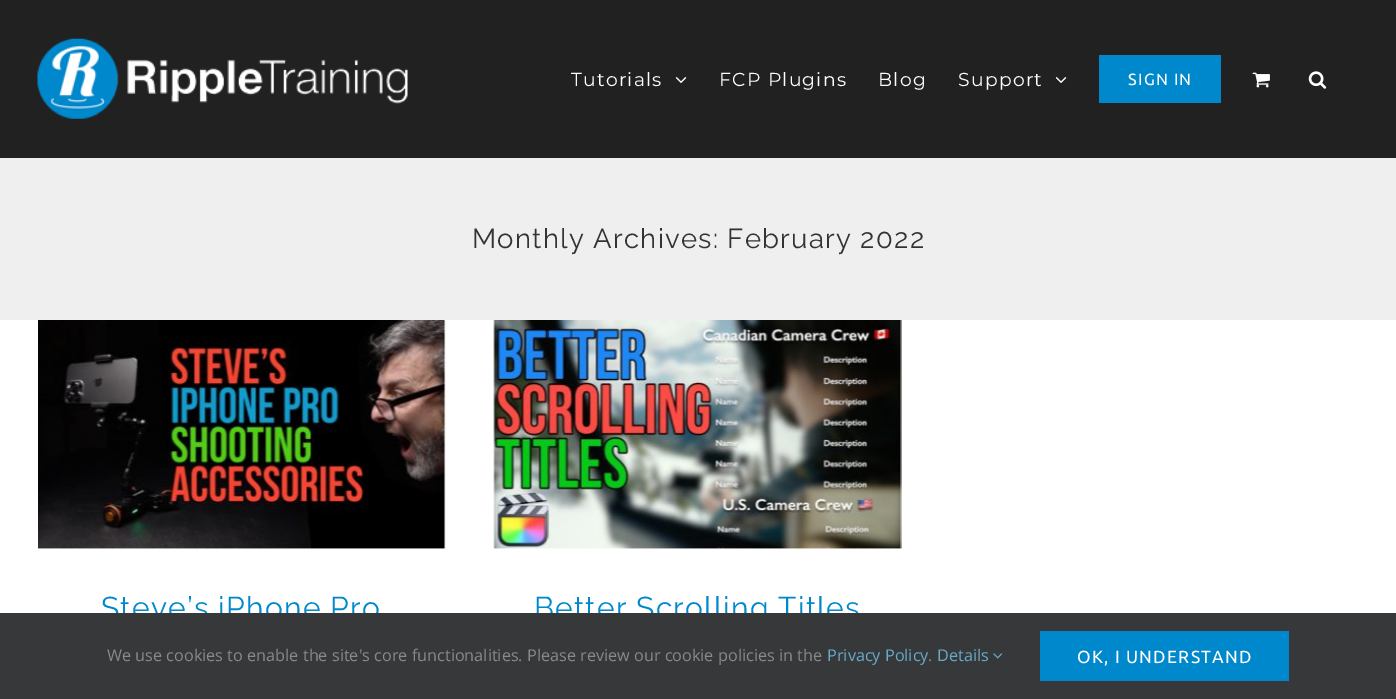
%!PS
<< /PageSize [1396 699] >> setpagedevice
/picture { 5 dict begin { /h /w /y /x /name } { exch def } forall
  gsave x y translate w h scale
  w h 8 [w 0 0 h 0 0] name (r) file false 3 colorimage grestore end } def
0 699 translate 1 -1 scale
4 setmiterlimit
1 setgray
0 0 1396 699 rectfill
0.129 setgray
0 0 1396 158 rectfill
(img1.rgb) 37 38 371 81 picture
/Montserrat-Thin [18.75 0 0 -18.75 0 0] selectfont
1 setgray
571 86 moveto 1.25 0 (Tutorials) ashow
(img2.rgb) 675 77 12 6 picture
719 86 moveto 1.25 0 (FCP Plugins) ashow
878 86 moveto 1.25 0 (Blog) ashow
958 86 moveto 1.25 0 (Support) ashow
(img2.rgb) 1055 77 12 6 picture
0 0.533 0.8 setrgbcolor
1099 55 122 48 rectfill
/Ubuntu-Regular [16.25 0 0 -16.25 0 0] selectfont
1 setgray
1128 85 moveto 1.25 0 (SIGN IN) ashow
(img3.rgb) 1252 72 18 16 picture
(img4.rgb) 1308 71 19 18 picture
0.937 setgray
0 158 1396 162 rectfill
/Raleway-Thin [27.5 0 0 -27.5 0 0] selectfont
0.2 setgray
472 248 moveto 1.25 0 (Monthly Archives: February 2022) ashow
(img5.rgb) 38 320 408 229 picture
/Raleway-Thin [30 0 0 -30 0 0] selectfont
0 0.533 0.8 setrgbcolor
101 618 moveto 1.25 0 (Steve’s iPhone Pro) ashow
(img6.rgb) 493 320 409 229 picture
534 618 moveto 1.25 0 (Better Scrolling Titles) ashow
0.212 0.22 0.224 setrgbcolor
0 613 1396 86 rectfill
/OpenSans-Regular [16.25 0 0 -16.25 0 0] selectfont
0.549 0.537 0.537 setrgbcolor
107 661 moveto (We use cookies to enable the site's core functionalities. Please review our cookie policies in the) show
0.408 0.667 0.8 setrgbcolor
827 661 moveto (Privacy Policy) show
937 661 moveto (Details) show
(img7.rgb) 993 653 10 6 picture
0.549 0.537 0.537 setrgbcolor
928 661 moveto (.) show
0 0.533 0.8 setrgbcolor
1040 631 249 50 rectfill
/Ubuntu-Regular [17.5 0 0 -17.5 0 0] selectfont
1 setgray
1077 663 moveto 1.25 0 (OK, I UNDERSTAND) ashow
showpage
